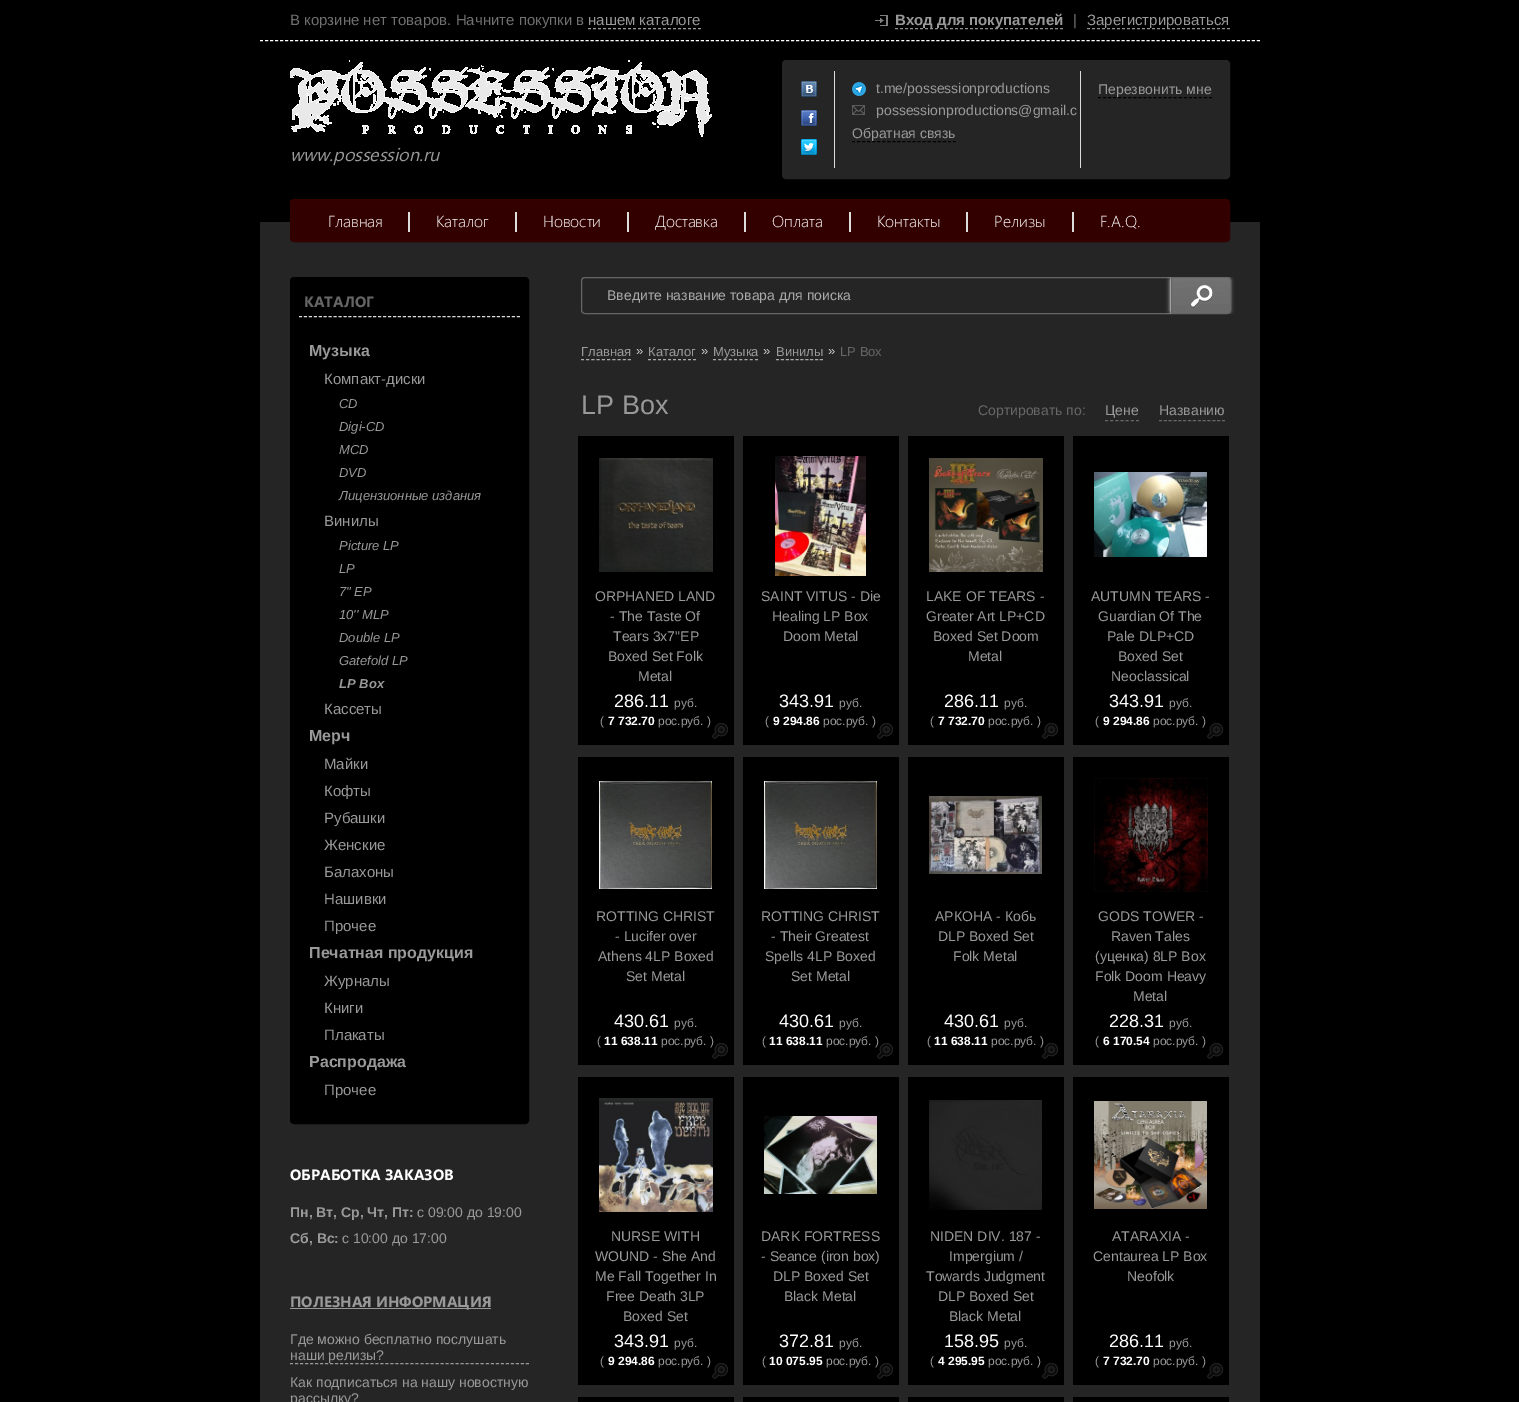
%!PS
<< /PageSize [1519 1402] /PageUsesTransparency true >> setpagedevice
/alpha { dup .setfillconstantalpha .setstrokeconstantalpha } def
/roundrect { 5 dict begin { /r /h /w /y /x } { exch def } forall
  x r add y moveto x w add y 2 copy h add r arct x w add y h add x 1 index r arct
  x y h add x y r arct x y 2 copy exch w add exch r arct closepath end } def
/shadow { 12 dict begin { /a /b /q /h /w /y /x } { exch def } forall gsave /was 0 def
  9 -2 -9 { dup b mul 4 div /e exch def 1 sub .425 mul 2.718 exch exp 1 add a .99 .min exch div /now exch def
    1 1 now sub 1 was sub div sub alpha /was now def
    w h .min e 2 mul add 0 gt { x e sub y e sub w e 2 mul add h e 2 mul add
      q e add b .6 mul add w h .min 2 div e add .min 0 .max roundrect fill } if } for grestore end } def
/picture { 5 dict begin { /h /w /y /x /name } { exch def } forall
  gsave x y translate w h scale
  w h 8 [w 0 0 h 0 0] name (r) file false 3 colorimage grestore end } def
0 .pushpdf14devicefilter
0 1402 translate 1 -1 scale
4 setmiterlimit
0 setgray
0 0 1519 1402 rectfill
1 setgray
[3 2.01] 0 setdash
newpath 260 40.5 moveto 1260 40.5 lineto stroke
/LiberationSans-Regular [15 0 0 -15 0 0] selectfont
0.439 setgray
290 25 moveto (В корзине нет товаров. Начните покупки в) show
0.6 setgray
588 25 moveto (нашем каталоге) show
[3 2] 0 setdash
newpath 588 28.5 moveto 701 28.5 lineto stroke
(img1.rgb) 875 15 13 11 picture
0.561 setgray
newpath 895 28.5 moveto 1063 28.5 lineto stroke
/LiberationSans-Bold [15 0 0 -15 0 0] selectfont
0.6 setgray
895 25 moveto (Вход для покупателей) show
/LiberationSans-Regular [15 0 0 -15 0 0] selectfont
0.439 setgray
1073 25 moveto (|) show
0.561 setgray
newpath 1087 28.5 moveto 1230 28.5 lineto stroke
0.6 setgray
1087 25 moveto (Зарегистрироваться) show
0.145 setgray
782.5 60.5 447 118 3.5 roundrect gsave fill grestore
[] 0 setdash
stroke
0.867 setgray
834 71 1 97 rectfill
(img2.rgb) 801 81 16 16 picture
(img3.rgb) 801 110 16 16 picture
(img4.rgb) 801 139 16 16 picture
1080 71 1 97 rectfill
(img5.rgb) 852 82 14 14 picture
/LiberationSans-Regular [14 0 0 -14 0 0] selectfont
0.6 setgray
876 93 moveto (t.me/possessionproductions) show
(img6.rgb) 852 105 13 10 picture
876 115 moveto (possessionproductions@gmail.c) show
0 setgray
[3 2.05] 0 setdash
newpath 852 141.5 moveto 956 141.5 lineto stroke
0.6 setgray
852 138 moveto (Обратная связь) show
0 setgray
newpath 1098 97.5 moveto 1212 97.5 lineto stroke
0.6 setgray
1098 94 moveto (Перезвонить мне) show
(img7.rgb) 290 60 422 77 picture
/SegoeUI-Italic [18 0 0 -18 0 0] selectfont
290 161 moveto (www.possession.ru) show
0.145 setgray
260 222 1000 1180 rectfill
0.2 0 0 setrgbcolor
290.5 199.5 939 42 3.5 roundrect gsave fill grestore
0.208 0 0 setrgbcolor
[] 0 setdash
stroke
/SegoeUI-Light [16 0 0 -16 0 0] selectfont
1 setgray
328 227 moveto (Главная) show
0.867 setgray
408 212 2 20 rectfill
1 setgray
436 227 moveto (Каталог) show
0.867 setgray
515 212 2 20 rectfill
1 setgray
543 227 moveto (Новости) show
0.867 setgray
627 212 2 20 rectfill
1 setgray
655 227 moveto (Доставка) show
0.867 setgray
744 212 2 20 rectfill
1 setgray
772 227 moveto (Оплата) show
0.867 setgray
849 212 2 20 rectfill
1 setgray
877 227 moveto (Контакты) show
0.867 setgray
966 212 2 20 rectfill
1 setgray
994 227 moveto (Релизы) show
0.867 setgray
1072 212 2 20 rectfill
1 setgray
1100 227 moveto (F.A.Q.) show
0 setgray
290.5 277.5 238 846 3.5 roundrect gsave fill grestore
stroke
0.867 setgray
[3 1.95] 0 setdash
newpath 299 316.5 moveto 520 316.5 lineto stroke
/SegoeUI-Bold [15 0 0 -15 0 0] selectfont
0.4 setgray
304 307 moveto (КАТАЛОГ) show
/LiberationSans-Bold [16 0 0 -16 0 0] selectfont
0.6 setgray
309 356 moveto (Музыка) show
/LiberationSans-Regular [15 0 0 -15 0 0] selectfont
324 384 moveto (Компакт-диски) show
/LiberationSans-Italic [13 0 0 -13 0 0] selectfont
339 408 moveto (CD) show
339 431 moveto (Digi-CD) show
339 454 moveto (MCD) show
339 477 moveto (DVD) show
339 500 moveto (Лицензионные издания) show
/LiberationSans-Regular [15 0 0 -15 0 0] selectfont
324 526 moveto (Винилы) show
/LiberationSans-Italic [13 0 0 -13 0 0] selectfont
339 550 moveto (Picture LP) show
339 573 moveto (LP) show
339 596 moveto (7" EP) show
339 619 moveto (10'' MLP) show
339 642 moveto (Double LP) show
339 665 moveto (Gatefold LP) show
/LiberationSans-BoldItalic [13 0 0 -13 0 0] selectfont
339 688 moveto (LP Box) show
/LiberationSans-Regular [15 0 0 -15 0 0] selectfont
324 714 moveto (Кассеты) show
/LiberationSans-Bold [16 0 0 -16 0 0] selectfont
309 741 moveto (Мерч) show
/LiberationSans-Regular [15 0 0 -15 0 0] selectfont
324 769 moveto (Майки) show
324 796 moveto (Кофты) show
324 823 moveto (Рубашки) show
324 850 moveto (Женские) show
324 877 moveto (Балахоны) show
324 904 moveto (Нашивки) show
324 931 moveto (Прочее) show
/LiberationSans-Bold [16 0 0 -16 0 0] selectfont
309 958 moveto (Печатная продукция) show
/LiberationSans-Regular [15 0 0 -15 0 0] selectfont
324 986 moveto (Журналы) show
324 1013 moveto (Книги) show
324 1040 moveto (Плакаты) show
/LiberationSans-Bold [16 0 0 -16 0 0] selectfont
309 1067 moveto (Распродажа) show
/LiberationSans-Regular [15 0 0 -15 0 0] selectfont
324 1095 moveto (Прочее) show
/SegoeUI-Bold [15 0 0 -15 0 0] selectfont
1 setgray
290 1180 moveto (ОБРАБОТКА ЗАКАЗОВ) show
/LiberationSans-Bold [14 0 0 -14 0 0] selectfont
0.6 setgray
290 1217 moveto (Пн, Вт, Ср, Чт, Пт:) show
/LiberationSans-Regular [14 0 0 -14 0 0] selectfont
417 1217 moveto (с 09:00 до 19:00) show
/LiberationSans-Bold [14 0 0 -14 0 0] selectfont
290 1243 moveto (Сб, Вс:) show
/LiberationSans-Regular [14 0 0 -14 0 0] selectfont
342 1243 moveto (с 10:00 до 17:00) show
290 1308 201 1 rectfill
/SegoeUI-Bold [15 0 0 -15 0 0] selectfont
290 1307 moveto (ПОЛЕЗНАЯ ИНФОРМАЦИЯ) show
[3 2.02] 0 setdash
newpath 290 1363.5 moveto 529 1363.5 lineto stroke
/LiberationSans-Regular [14 0 0 -14 0 0] selectfont
290 1344 moveto (Где можно бесплатно послушать) show
290 1360 moveto (наши релизы?) show
290 1387 moveto (Как подписаться на нашу новостную) show
290 1403 moveto (рассылку?) show
0.4 setgray
[] 0 setdash
newpath 585 277.5 moveto 1170.5 277.5 lineto 1170.5 313.5 lineto 585 313.5 lineto 583 313.5 581.5 312 581.5 310 curveto 581.5 281 lineto 581.5 279 583 277.5 585 277.5 curveto closepath stroke
0.667 setgray
607 300 moveto (Введите название товара для поиска) show
gsave
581 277 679 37 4 roundrect clip newpath
0.788 setgray
1170 277 60 37 4 2 1 shadow
grestore
(img8.rgb) 1172 278 59 36 picture
0.4 setgray
newpath 1171.5 277.5 moveto 1227 277.5 lineto 1229 277.5 1230.5 279 1230.5 281 curveto 1230.5 310 lineto 1230.5 312 1229 313.5 1227 313.5 curveto 1171.5 313.5 lineto closepath stroke
/LiberationSans-Regular [13 0 0 -13 0 0] selectfont
0.6 setgray
581 356 moveto (Главная) show
0.667 setgray
[3 2.22] 0 setdash
newpath 581 359.5 moveto 631 359.5 lineto stroke
0.8 setgray
636 355 moveto (») show
0.6 setgray
648 356 moveto (Каталог) show
0.667 setgray
[3 2] 0 setdash
newpath 648 359.5 moveto 696 359.5 lineto stroke
0.8 setgray
701 355 moveto (») show
0.6 setgray
713 356 moveto (Музыка) show
0.667 setgray
[3 2.25] 0 setdash
newpath 713 359.5 moveto 758 359.5 lineto stroke
0.8 setgray
763 355 moveto (») show
0.6 setgray
776 356 moveto (Винилы) show
0.667 setgray
[3 1.89] 0 setdash
newpath 776 359.5 moveto 823 359.5 lineto stroke
0.8 setgray
828 355 moveto (») show
0.4 setgray
840 356 moveto (LP Box) show
/LiberationSans-Regular [27 0 0 -27 0 0] selectfont
0.6 setgray
581 414 moveto (LP Box) show
/LiberationSans-Regular [14 0 0 -14 0 0] selectfont
0.4 setgray
978 415 moveto (Сортировать по:) show
[3 2.17] 0 setdash
newpath 1105 420.5 moveto 1139 420.5 lineto stroke
0.6 setgray
1105 415 moveto (Цене) show
0.4 setgray
[3 1.85] 0 setdash
newpath 1159 420.5 moveto 1225 420.5 lineto stroke
0.6 setgray
1159 415 moveto (Названию) show
0 setgray
578 436 156 309 rectfill
(img9.rgb) 599 458 114 114 picture
0.6 setgray
595 601 moveto (ORPHANED LAND) show
610 621 moveto (- The Taste Of) show
613 641 moveto (Tears 3x7"EP) show
608 661 moveto (Boxed Set Folk) show
638 681 moveto (Metal) show
/LiberationSans-Regular [18 0 0 -18 0 0] selectfont
1 setgray
614 707 moveto (286.11) show
/LiberationSans-Regular [12 0 0 -12 0 0] selectfont
0.6 setgray
674 707 moveto (руб.) show
600 725 moveto (\() show
/LiberationSans-Bold [12 0 0 -12 0 0] selectfont
1 setgray
608 725 moveto (7 732.70) show
/LiberationSans-Regular [12 0 0 -12 0 0] selectfont
0.6 setgray
658 725 moveto (рос.руб. \)) show
(img10.rgb) 712 723 16 16 picture
0 setgray
743 436 156 309 rectfill
(img11.rgb) 775 456 91 120 picture
/LiberationSans-Regular [14 0 0 -14 0 0] selectfont
0.6 setgray
761 601 moveto (SAINT VITUS - Die) show
772 621 moveto (Healing LP Box) show
783 641 moveto (Doom Metal) show
/LiberationSans-Regular [18 0 0 -18 0 0] selectfont
1 setgray
779 707 moveto (343.91) show
/LiberationSans-Regular [12 0 0 -12 0 0] selectfont
0.6 setgray
839 707 moveto (руб.) show
765 725 moveto (\() show
/LiberationSans-Bold [12 0 0 -12 0 0] selectfont
1 setgray
773 725 moveto (9 294.86) show
/LiberationSans-Regular [12 0 0 -12 0 0] selectfont
0.6 setgray
823 725 moveto (рос.руб. \)) show
(img10.rgb) 877 723 16 16 picture
0 setgray
908 436 156 309 rectfill
(img12.rgb) 929 458 114 114 picture
/LiberationSans-Regular [14 0 0 -14 0 0] selectfont
0.6 setgray
926 601 moveto (LAKE OF TEARS -) show
926 621 moveto (Greater Art LP+CD) show
933 641 moveto (Boxed Set Doom) show
968 661 moveto (Metal) show
/LiberationSans-Regular [18 0 0 -18 0 0] selectfont
1 setgray
944 707 moveto (286.11) show
/LiberationSans-Regular [12 0 0 -12 0 0] selectfont
0.6 setgray
1004 707 moveto (руб.) show
930 725 moveto (\() show
/LiberationSans-Bold [12 0 0 -12 0 0] selectfont
1 setgray
938 725 moveto (7 732.70) show
/LiberationSans-Regular [12 0 0 -12 0 0] selectfont
0.6 setgray
988 725 moveto (рос.руб. \)) show
(img10.rgb) 1042 723 16 16 picture
0 setgray
1073 436 156 309 rectfill
(img13.rgb) 1094 472 113 85 picture
/LiberationSans-Regular [14 0 0 -14 0 0] selectfont
0.6 setgray
1091 601 moveto (AUTUMN TEARS -) show
1098 621 moveto (Guardian Of The) show
1107 641 moveto (Pale DLP+CD) show
1118 661 moveto (Boxed Set) show
1111 681 moveto (Neoclassical) show
/LiberationSans-Regular [18 0 0 -18 0 0] selectfont
1 setgray
1109 707 moveto (343.91) show
/LiberationSans-Regular [12 0 0 -12 0 0] selectfont
0.6 setgray
1169 707 moveto (руб.) show
1095 725 moveto (\() show
/LiberationSans-Bold [12 0 0 -12 0 0] selectfont
1 setgray
1103 725 moveto (9 294.86) show
/LiberationSans-Regular [12 0 0 -12 0 0] selectfont
0.6 setgray
1153 725 moveto (рос.руб. \)) show
(img10.rgb) 1207 723 16 16 picture
0 setgray
578 757 156 308 rectfill
(img14.rgb) 599 781 113 108 picture
/LiberationSans-Regular [14 0 0 -14 0 0] selectfont
0.6 setgray
596 921 moveto (ROTTING CHRIST) show
615 941 moveto (- Lucifer over) show
598 961 moveto (Athens 4LP Boxed) show
626 981 moveto (Set Metal) show
/LiberationSans-Regular [18 0 0 -18 0 0] selectfont
1 setgray
614 1027 moveto (430.61) show
/LiberationSans-Regular [12 0 0 -12 0 0] selectfont
0.6 setgray
674 1027 moveto (руб.) show
597 1045 moveto (\() show
/LiberationSans-Bold [12 0 0 -12 0 0] selectfont
1 setgray
604 1045 moveto (11 638.11) show
/LiberationSans-Regular [12 0 0 -12 0 0] selectfont
0.6 setgray
661 1045 moveto (рос.руб. \)) show
(img15.rgb) 712 1043 16 16 picture
0 setgray
743 757 156 308 rectfill
(img16.rgb) 764 781 113 108 picture
/LiberationSans-Regular [14 0 0 -14 0 0] selectfont
0.6 setgray
761 921 moveto (ROTTING CHRIST) show
771 941 moveto (- Their Greatest) show
765 961 moveto (Spells 4LP Boxed) show
791 981 moveto (Set Metal) show
/LiberationSans-Regular [18 0 0 -18 0 0] selectfont
1 setgray
779 1027 moveto (430.61) show
/LiberationSans-Regular [12 0 0 -12 0 0] selectfont
0.6 setgray
839 1027 moveto (руб.) show
762 1045 moveto (\() show
/LiberationSans-Bold [12 0 0 -12 0 0] selectfont
1 setgray
769 1045 moveto (11 638.11) show
/LiberationSans-Regular [12 0 0 -12 0 0] selectfont
0.6 setgray
826 1045 moveto (рос.руб. \)) show
(img15.rgb) 877 1043 16 16 picture
0 setgray
908 757 156 308 rectfill
(img17.rgb) 929 796 113 78 picture
/LiberationSans-Regular [14 0 0 -14 0 0] selectfont
0.6 setgray
935 921 moveto (АРКОНА - Кобь) show
938 941 moveto (DLP Boxed Set) show
953 961 moveto (Folk Metal) show
/LiberationSans-Regular [18 0 0 -18 0 0] selectfont
1 setgray
944 1027 moveto (430.61) show
/LiberationSans-Regular [12 0 0 -12 0 0] selectfont
0.6 setgray
1004 1027 moveto (руб.) show
927 1045 moveto (\() show
/LiberationSans-Bold [12 0 0 -12 0 0] selectfont
1 setgray
934 1045 moveto (11 638.11) show
/LiberationSans-Regular [12 0 0 -12 0 0] selectfont
0.6 setgray
991 1045 moveto (рос.руб. \)) show
(img15.rgb) 1042 1043 16 16 picture
0 setgray
1073 757 156 308 rectfill
(img18.rgb) 1094 778 114 114 picture
/LiberationSans-Regular [14 0 0 -14 0 0] selectfont
0.6 setgray
1098 921 moveto (GODS TOWER -) show
1111 941 moveto (Raven Tales) show
1095 961 moveto (\(уценка\) 8LP Box) show
1095 981 moveto (Folk Doom Heavy) show
1133 1001 moveto (Metal) show
/LiberationSans-Regular [18 0 0 -18 0 0] selectfont
1 setgray
1109 1027 moveto (228.31) show
/LiberationSans-Regular [12 0 0 -12 0 0] selectfont
0.6 setgray
1169 1027 moveto (руб.) show
1095 1045 moveto (\() show
/LiberationSans-Bold [12 0 0 -12 0 0] selectfont
1 setgray
1103 1045 moveto (6 170.54) show
/LiberationSans-Regular [12 0 0 -12 0 0] selectfont
0.6 setgray
1153 1045 moveto (рос.руб. \)) show
(img10.rgb) 1207 1043 16 16 picture
0 setgray
578 1077 156 308 rectfill
(img19.rgb) 599 1098 114 114 picture
/LiberationSans-Regular [14 0 0 -14 0 0] selectfont
0.6 setgray
611 1241 moveto (NURSE WITH) show
595 1261 moveto (WOUND - She And) show
595 1281 moveto (Me Fall Together In) show
606 1301 moveto (Free Death 3LP) show
623 1321 moveto (Boxed Set) show
/LiberationSans-Regular [18 0 0 -18 0 0] selectfont
1 setgray
614 1347 moveto (343.91) show
/LiberationSans-Regular [12 0 0 -12 0 0] selectfont
0.6 setgray
674 1347 moveto (руб.) show
600 1365 moveto (\() show
/LiberationSans-Bold [12 0 0 -12 0 0] selectfont
1 setgray
608 1365 moveto (9 294.86) show
/LiberationSans-Regular [12 0 0 -12 0 0] selectfont
0.6 setgray
658 1365 moveto (рос.руб. \)) show
(img10.rgb) 712 1363 16 16 picture
0 setgray
743 1077 156 308 rectfill
(img20.rgb) 764 1116 113 78 picture
/LiberationSans-Regular [14 0 0 -14 0 0] selectfont
0.6 setgray
761 1241 moveto (DARK FORTRESS) show
761 1261 moveto (- Seance \(iron box\)) show
773 1281 moveto (DLP Boxed Set) show
784 1301 moveto (Black Metal) show
/LiberationSans-Regular [18 0 0 -18 0 0] selectfont
1 setgray
779 1347 moveto (372.81) show
/LiberationSans-Regular [12 0 0 -12 0 0] selectfont
0.6 setgray
839 1347 moveto (руб.) show
762 1365 moveto (\() show
/LiberationSans-Bold [12 0 0 -12 0 0] selectfont
1 setgray
769 1365 moveto (10 075.95) show
/LiberationSans-Regular [12 0 0 -12 0 0] selectfont
0.6 setgray
826 1365 moveto (рос.руб. \)) show
(img15.rgb) 877 1363 16 16 picture
0 setgray
908 1077 156 308 rectfill
(img21.rgb) 929 1100 113 110 picture
/LiberationSans-Regular [14 0 0 -14 0 0] selectfont
0.6 setgray
930 1241 moveto (NIDEN DIV. 187 -) show
949 1261 moveto (Impergium /) show
926 1281 moveto (Towards Judgment) show
938 1301 moveto (DLP Boxed Set) show
949 1321 moveto (Black Metal) show
/LiberationSans-Regular [18 0 0 -18 0 0] selectfont
1 setgray
944 1347 moveto (158.95) show
/LiberationSans-Regular [12 0 0 -12 0 0] selectfont
0.6 setgray
1004 1347 moveto (руб.) show
930 1365 moveto (\() show
/LiberationSans-Bold [12 0 0 -12 0 0] selectfont
1 setgray
938 1365 moveto (4 295.95) show
/LiberationSans-Regular [12 0 0 -12 0 0] selectfont
0.6 setgray
988 1365 moveto (рос.руб. \)) show
(img10.rgb) 1042 1363 16 16 picture
0 setgray
1073 1077 156 308 rectfill
(img22.rgb) 1094 1101 113 108 picture
/LiberationSans-Regular [14 0 0 -14 0 0] selectfont
0.6 setgray
1112 1241 moveto (ATARAXIA -) show
1093 1261 moveto (Centaurea LP Box) show
1127 1281 moveto (Neofolk) show
/LiberationSans-Regular [18 0 0 -18 0 0] selectfont
1 setgray
1109 1347 moveto (286.11) show
/LiberationSans-Regular [12 0 0 -12 0 0] selectfont
0.6 setgray
1169 1347 moveto (руб.) show
1095 1365 moveto (\() show
/LiberationSans-Bold [12 0 0 -12 0 0] selectfont
1 setgray
1103 1365 moveto (7 732.70) show
/LiberationSans-Regular [12 0 0 -12 0 0] selectfont
0.6 setgray
1153 1365 moveto (рос.руб. \)) show
(img10.rgb) 1207 1363 16 16 picture
0 setgray
578 1397 156 5 rectfill
743 1397 156 5 rectfill
908 1397 156 5 rectfill
1073 1397 156 5 rectfill
.poppdf14devicefilter showpage
